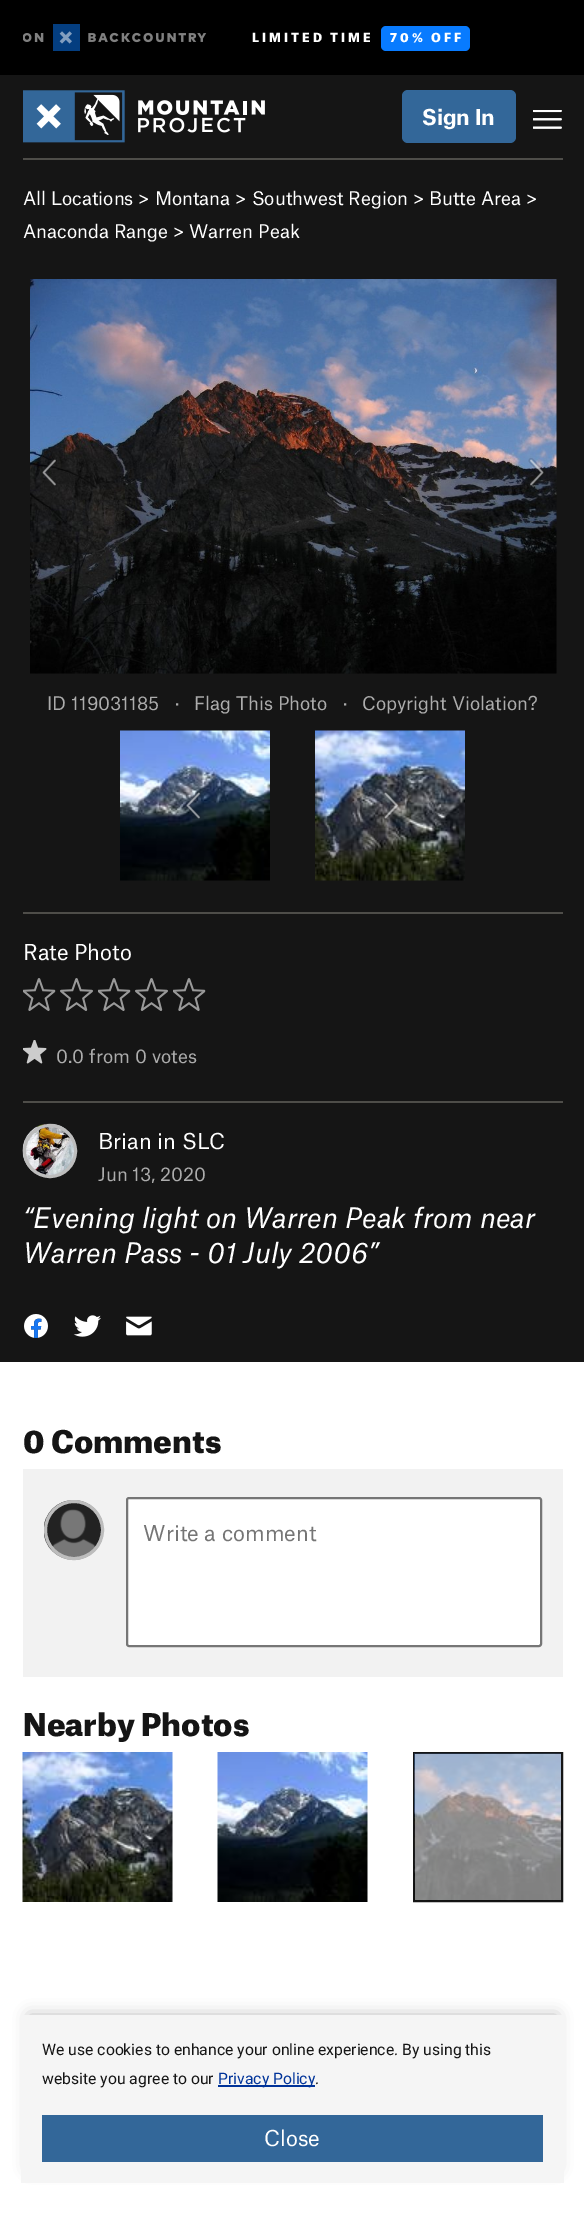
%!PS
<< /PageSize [584 2224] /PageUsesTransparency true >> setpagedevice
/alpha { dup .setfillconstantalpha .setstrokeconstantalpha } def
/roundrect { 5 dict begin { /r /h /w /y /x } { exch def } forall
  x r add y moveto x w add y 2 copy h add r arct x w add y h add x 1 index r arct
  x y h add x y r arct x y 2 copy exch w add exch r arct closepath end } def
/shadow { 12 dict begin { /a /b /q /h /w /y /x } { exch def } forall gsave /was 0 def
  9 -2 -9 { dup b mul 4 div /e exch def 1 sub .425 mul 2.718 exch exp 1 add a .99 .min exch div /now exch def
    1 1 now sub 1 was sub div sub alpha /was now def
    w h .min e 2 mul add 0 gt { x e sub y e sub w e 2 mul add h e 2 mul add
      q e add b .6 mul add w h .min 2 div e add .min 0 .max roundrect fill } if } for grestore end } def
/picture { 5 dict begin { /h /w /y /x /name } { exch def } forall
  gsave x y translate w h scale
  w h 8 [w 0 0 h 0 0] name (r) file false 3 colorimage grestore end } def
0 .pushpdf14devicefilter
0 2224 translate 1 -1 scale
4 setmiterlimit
1 setgray
0 0 584 2224 rectfill
0.082 setgray
0 75 584 1287 rectfill
0 setgray
0 0 584 75 rectfill
(img1.rgb) 23 24 184 27 picture
/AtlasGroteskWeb-Black [12 0 0 -12 0 0] selectfont
1 setgray
252 42 moveto 3 0 (LIMITED TIME) ashow
0.031 0.482 1 setrgbcolor
381 26 89 25 5 roundrect fill
1 setgray
390 42 moveto 3 0 (70% OFF) ashow
(img2.rgb) 23 90 242 53 picture
0.2 0.404 0.6 setrgbcolor
402 90 114 53 6 roundrect fill
/AtlasGroteskWeb-Bold [21 0 0 -21 0 0] selectfont
1 setgray
422 125 moveto (Sign In) show
(img3.rgb) 533 110 29 19 picture
0.306 0.302 0.286 setrgbcolor
23 158 540 2 rectfill
/AtlasGroteskWeb-Regular [18 0 0 -18 0 0] selectfont
1 setgray
23 205 moveto (All Locations > Montana > Southwest Region > Butte Area >) show
23 238 moveto (Anaconda Range > Warren Peak) show
(img4.rgb) 30 279 527 395 picture
(img5.rgb) 42 459 14 27 picture
(img6.rgb) 528 458 16 28 picture
0.675 setgray
47 710 moveto (ID 119031185) show
175 710 moveto (·) show
194 710 moveto (Flag This Photo) show
343 710 moveto (·) show
362 710 moveto (Copyright Violation?) show
(img7.rgb) 120 730 150 151 picture
(img8.rgb) 185 791 16 28 picture
(img9.rgb) 315 730 150 151 picture
(img10.rgb) 383 791 17 29 picture
0.306 0.302 0.286 setrgbcolor
23 912 540 2 rectfill
/AtlasGroteskWeb-Regular [21 0 0 -21 0 0] selectfont
1 setgray
23 960 moveto (Rate Photo) show
(img11.rgb) 23 978 33 33 picture
(img12.rgb) 60 978 33 33 picture
(img11.rgb) 98 978 33 33 picture
(img12.rgb) 135 978 33 33 picture
(img11.rgb) 173 978 33 33 picture
(img13.rgb) 23 1040 24 24 picture
/AtlasGroteskWeb-Regular [18 0 0 -18 0 0] selectfont
0.675 setgray
56 1063 moveto (0.0 from 0 votes) show
0.306 0.302 0.286 setrgbcolor
23 1101 540 2 rectfill
(img14.rgb) 22 1123 55 55 picture
0.741 setgray
3 setlinewidth
newpath 50 1151 25.5 0 360 arc closepath stroke
/AtlasGroteskWeb-Regular [21 0 0 -21 0 0] selectfont
1 setgray
98 1149 moveto (Brian in SLC) show
/AtlasGroteskWeb-Regular [18 0 0 -18 0 0] selectfont
0.675 setgray
98 1181 moveto (Jun 13, 2020) show
/AtlasGroteskWeb-Italic [27 0 0 -27 0 0] selectfont
1 setgray
23 1228 moveto (“Evening light on Warren Peak from near) show
23 1263 moveto (Warren Pass - 01 July 2006”) show
(img15.rgb) 24 1314 24 24 picture
(img16.rgb) 73 1315 28 22 picture
(img17.rgb) 126 1316 26 20 picture
/AtlasGroteskWeb-Black [30 0 0 -30 0 0] selectfont
0.082 setgray
23 1453 moveto (0 Comments) show
0.949 setgray
23 1469 540 208 rectfill
(img18.rgb) 44 1500 60 60 picture
0.741 setgray
newpath 74 1530 28.5 0 360 arc closepath stroke
1 setgray
127 1498 414 148 2 roundrect gsave fill grestore
0.463 setgray
2 setlinewidth
stroke
/AtlasGroteskWeb-Regular [21 0 0 -21 0 0] selectfont
0.459 setgray
143 1541 moveto (Write a comment) show
/AtlasGroteskWeb-Black [30 0 0 -30 0 0] selectfont
0.082 setgray
23 1736 moveto (Nearby Photos) show
(img19.rgb) 22 1752 151 150 picture
(img20.rgb) 217 1752 151 150 picture
414 1753 148 148 rectstroke
(img21.rgb) 414 1753 147 148 picture
0 setgray
29 2015 528 153 0 7.5 0.25 shadow
0.961 setgray
21 2015 543 168 rectfill
/Roboto-Regular [15.75 0 0 -15.75 0 0] selectfont
0.082 setgray
42 2055 moveto (We use cookies to enhance your online experience. By using this) show
42 2084 moveto (website you agree to our) show
0 0.2 0.6 setrgbcolor
218 2085 97 2 rectfill
218 2084 moveto (Privacy Policy) show
0.082 setgray
315 2084 moveto (.) show
0.2 0.404 0.6 setrgbcolor
42 2115 501 47 rectfill
/AtlasGroteskWeb-Regular [21 0 0 -21 0 0] selectfont
1 setgray
264 2146 moveto (Close) show
.poppdf14devicefilter showpage
